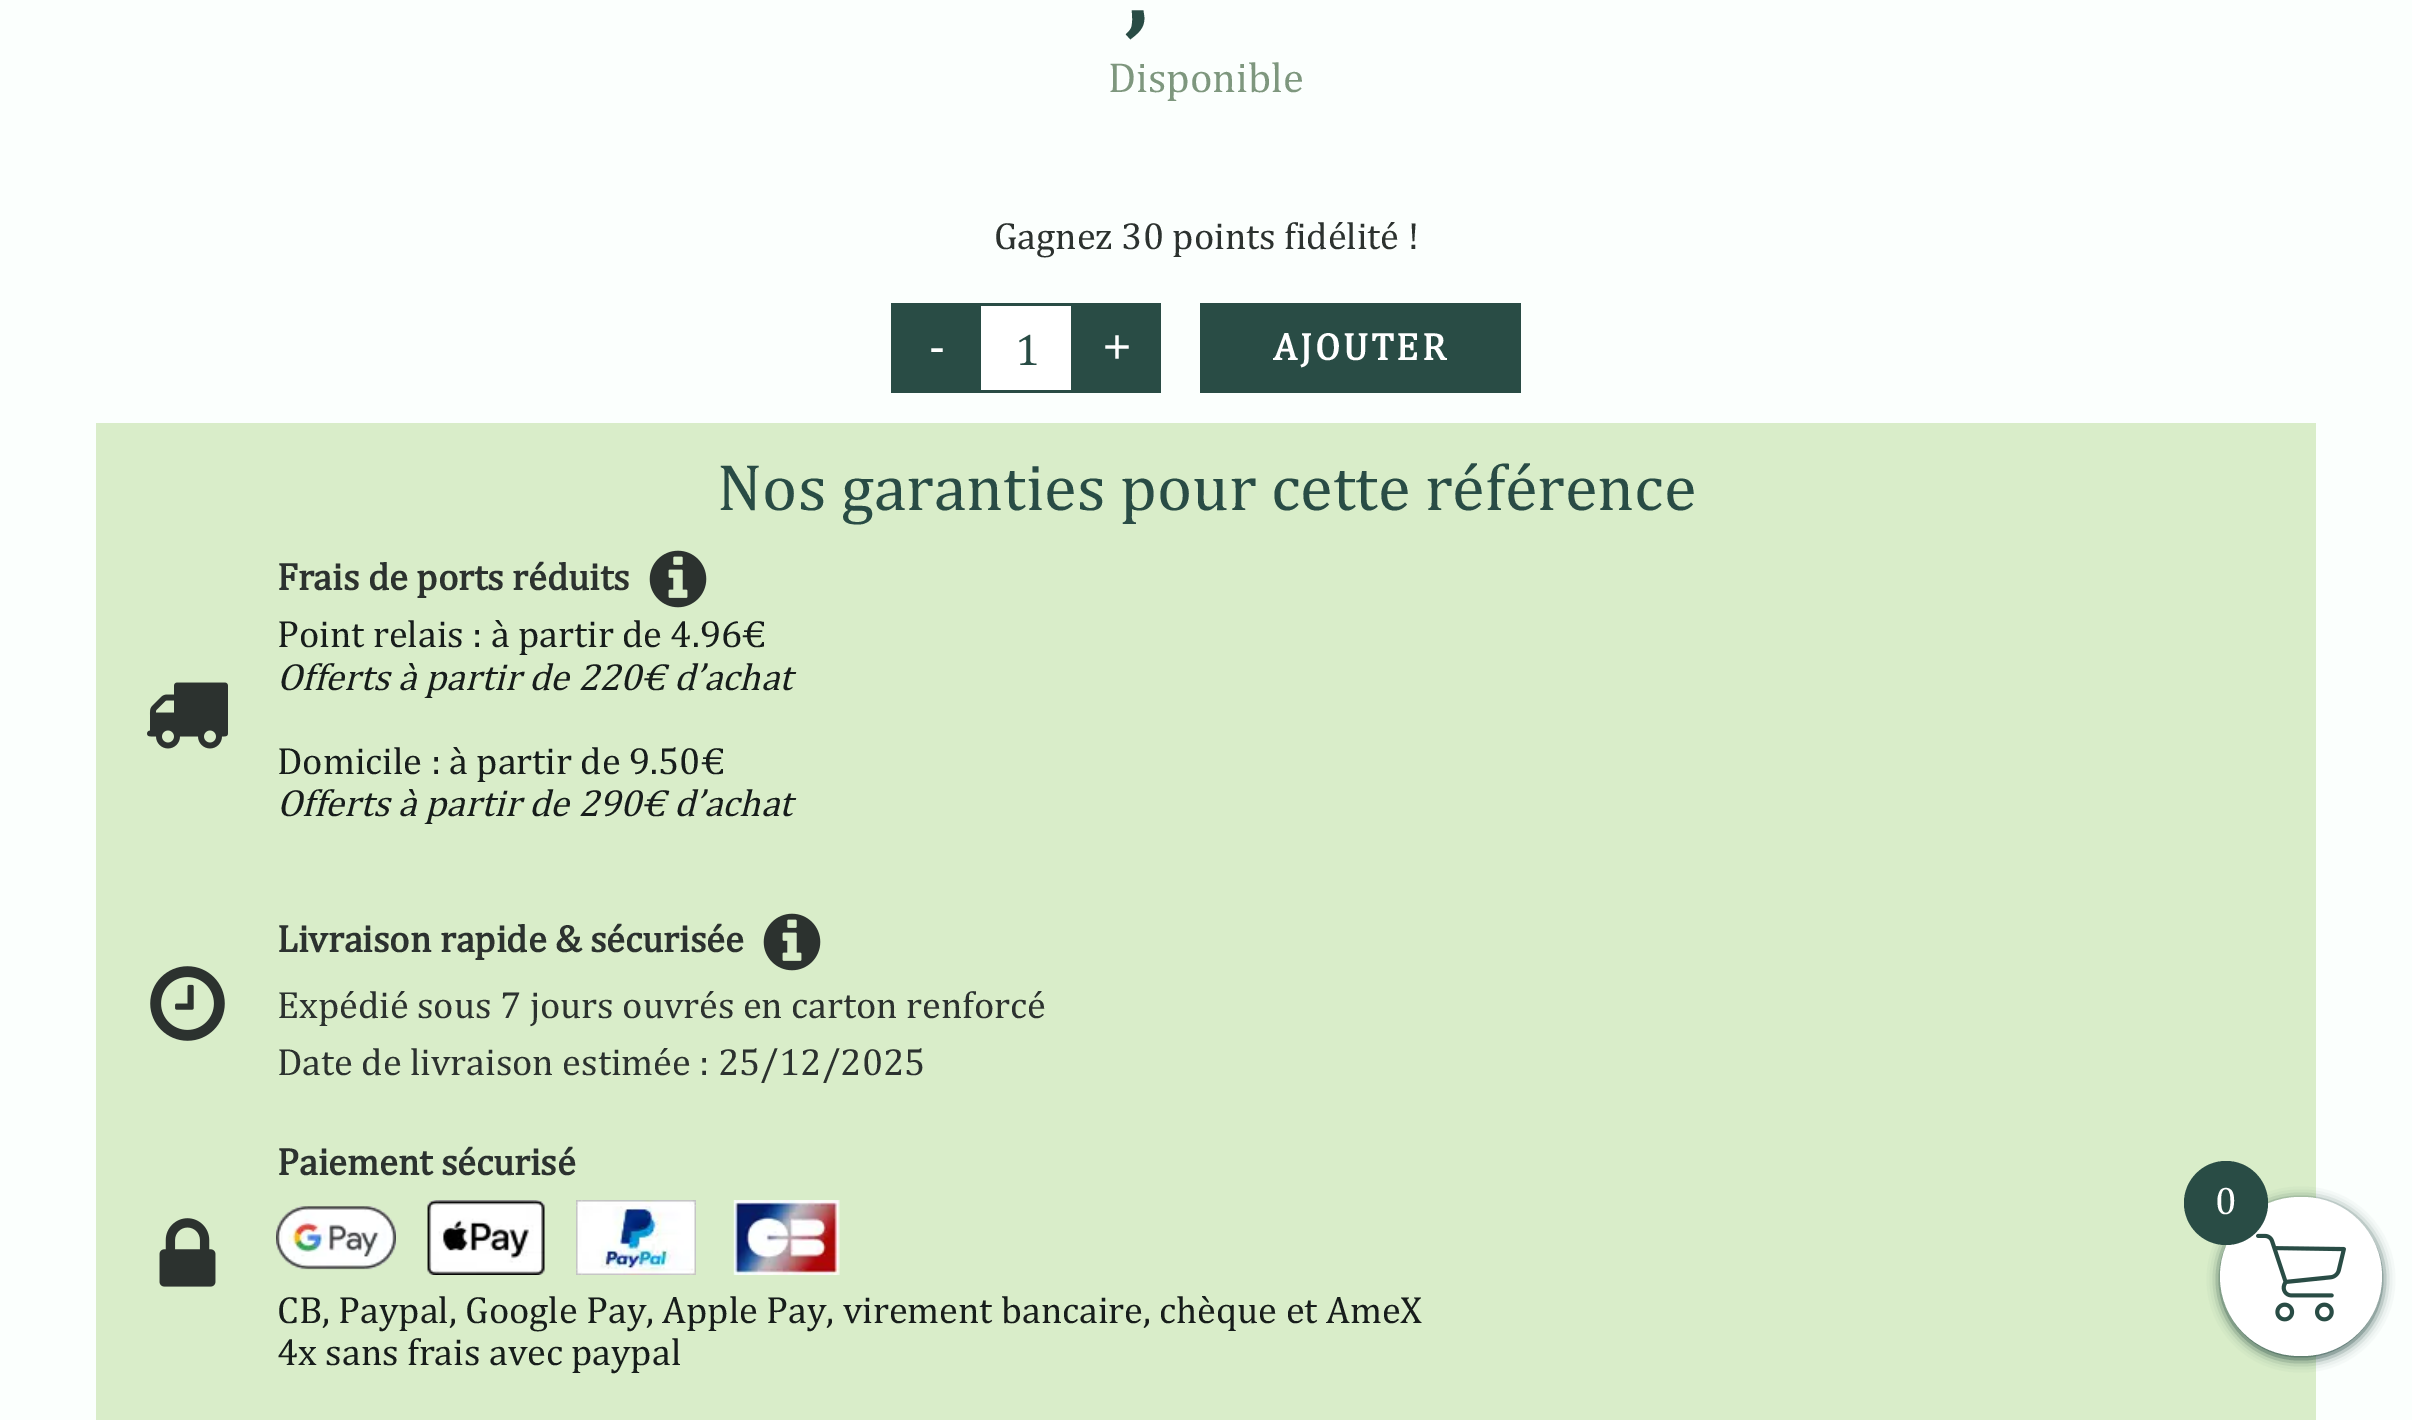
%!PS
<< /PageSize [2412 1420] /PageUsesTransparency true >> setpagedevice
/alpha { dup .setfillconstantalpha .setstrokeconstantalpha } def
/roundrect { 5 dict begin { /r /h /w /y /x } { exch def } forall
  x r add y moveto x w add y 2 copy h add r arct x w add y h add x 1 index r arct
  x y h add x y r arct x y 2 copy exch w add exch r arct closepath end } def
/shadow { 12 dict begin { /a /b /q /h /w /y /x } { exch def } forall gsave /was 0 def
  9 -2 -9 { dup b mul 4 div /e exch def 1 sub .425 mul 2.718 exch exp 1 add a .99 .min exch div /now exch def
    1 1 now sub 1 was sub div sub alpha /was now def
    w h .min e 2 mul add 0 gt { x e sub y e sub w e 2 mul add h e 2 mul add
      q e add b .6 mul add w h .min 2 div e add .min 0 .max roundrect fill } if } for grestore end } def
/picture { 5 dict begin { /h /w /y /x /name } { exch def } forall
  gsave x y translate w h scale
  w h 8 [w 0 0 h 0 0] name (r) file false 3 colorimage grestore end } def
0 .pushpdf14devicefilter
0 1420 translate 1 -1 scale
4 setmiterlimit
0.984 1 0.992 setrgbcolor
0 0 2412 1420 rectfill
/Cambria-Bold [104 0 0 -104 0 0] selectfont
0.161 0.298 0.271 setrgbcolor
1125 25 moveto (,) show
/Cambria-Regular [42.5 0 0 -42.5 0 0] selectfont
0.494 0.592 0.494 setrgbcolor
1108 92 moveto (Disponible) show
/Cambria-Regular [38.4 0 0 -38.4 0 0] selectfont
0.173 0.196 0.184 setrgbcolor
994 249 moveto (Gagnez 30 points fidélité !) show
0.161 0.298 0.271 setrgbcolor
891 303 90 90 rectfill
/LiberationSans-Regular [48 0 0 -48 0 0] selectfont
1 setgray
929 363 moveto (-) show
981 306 90 84 rectfill
0.161 0.298 0.271 setrgbcolor
981 303 90 3 rectfill
981 390 90 3 rectfill
/Cambria-Regular [45 0 0 -45 0 0] selectfont
1015 365 moveto (1) show
1071 303 90 90 rectfill
/LiberationSans-Regular [48 0 0 -48 0 0] selectfont
1 setgray
1103 363 moveto (+) show
0.161 0.298 0.271 setrgbcolor
1200 303 321 90 rectfill
/Cambria-Bold [38.4 0 0 -38.4 0 0] selectfont
1 setgray
1273 360 moveto 3 0 (AJOUTER) ashow
0.851 0.929 0.788 setrgbcolor
96 423 2220 997 rectfill
/Cambria-Regular [66.5 0 0 -66.5 0 0] selectfont
0.161 0.298 0.271 setrgbcolor
717 510 moveto (Nos garanties pour cette référence) show
(img1.rgb) 147 682 81 67 picture
/Cambria-Bold [38.4 0 0 -38.4 0 0] selectfont
0.173 0.196 0.184 setrgbcolor
277 590 moveto (Frais de ports réduits) show
(img2.rgb) 649 550 58 58 picture
/Cambria-Regular [38.4 0 0 -38.4 0 0] selectfont
0.09 0.114 0.106 setrgbcolor
277 647 moveto (Point relais : à partir de 4.96€) show
/Cambria-Italic [38.4 0 0 -38.4 0 0] selectfont
277 690 moveto (Offerts à partir de 220€ d’achat) show
/Cambria-Regular [38.4 0 0 -38.4 0 0] selectfont
277 774 moveto (Domicile : à partir de 9.50€) show
/Cambria-Italic [38.4 0 0 -38.4 0 0] selectfont
277 816 moveto (Offerts à partir de 290€ d’achat) show
(img3.rgb) 150 966 75 75 picture
/Cambria-Bold [38.4 0 0 -38.4 0 0] selectfont
0.173 0.196 0.184 setrgbcolor
277 952 moveto (Livraison rapide & sécurisée) show
(img2.rgb) 763 913 58 58 picture
/Cambria-Regular [38.4 0 0 -38.4 0 0] selectfont
277 1018 moveto (Expédié sous 7 jours ouvrés en carton renforcé) show
277 1075 moveto (Date de livraison estimée : 25/12/2025) show
(img4.rgb) 159 1218 57 69 picture
/Cambria-Bold [38.4 0 0 -38.4 0 0] selectfont
277 1175 moveto (Paiement sécurisé) show
(img5.rgb) 276 1206 120 64 picture
(img6.rgb) 427 1200 118 75 picture
(img7.rgb) 576 1200 120 75 picture
(img8.rgb) 733 1200 107 75 picture
/Cambria-Regular [38.4 0 0 -38.4 0 0] selectfont
0.09 0.114 0.106 setrgbcolor
277 1323 moveto (CB, Paypal, Google Pay, Apple Pay, virement bancaire, chèque et AmeX) show
277 1365 moveto (4x sans frais avec paypal) show
0.161 0.298 0.271 setrgbcolor
2220 1200 162 159 79.5 6 1 shadow
1 setgray
2220 1197 162 159 79.5 roundrect fill
0.161 0.298 0.271 setrgbcolor
newpath 2226 1203 42 0 360 arc closepath fill
/Cambria-Regular [39 0 0 -39 0 0] selectfont
1 setgray
2215 1214 moveto (0) show
(img9.rgb) 2256 1233 90 89 picture
.poppdf14devicefilter showpage
